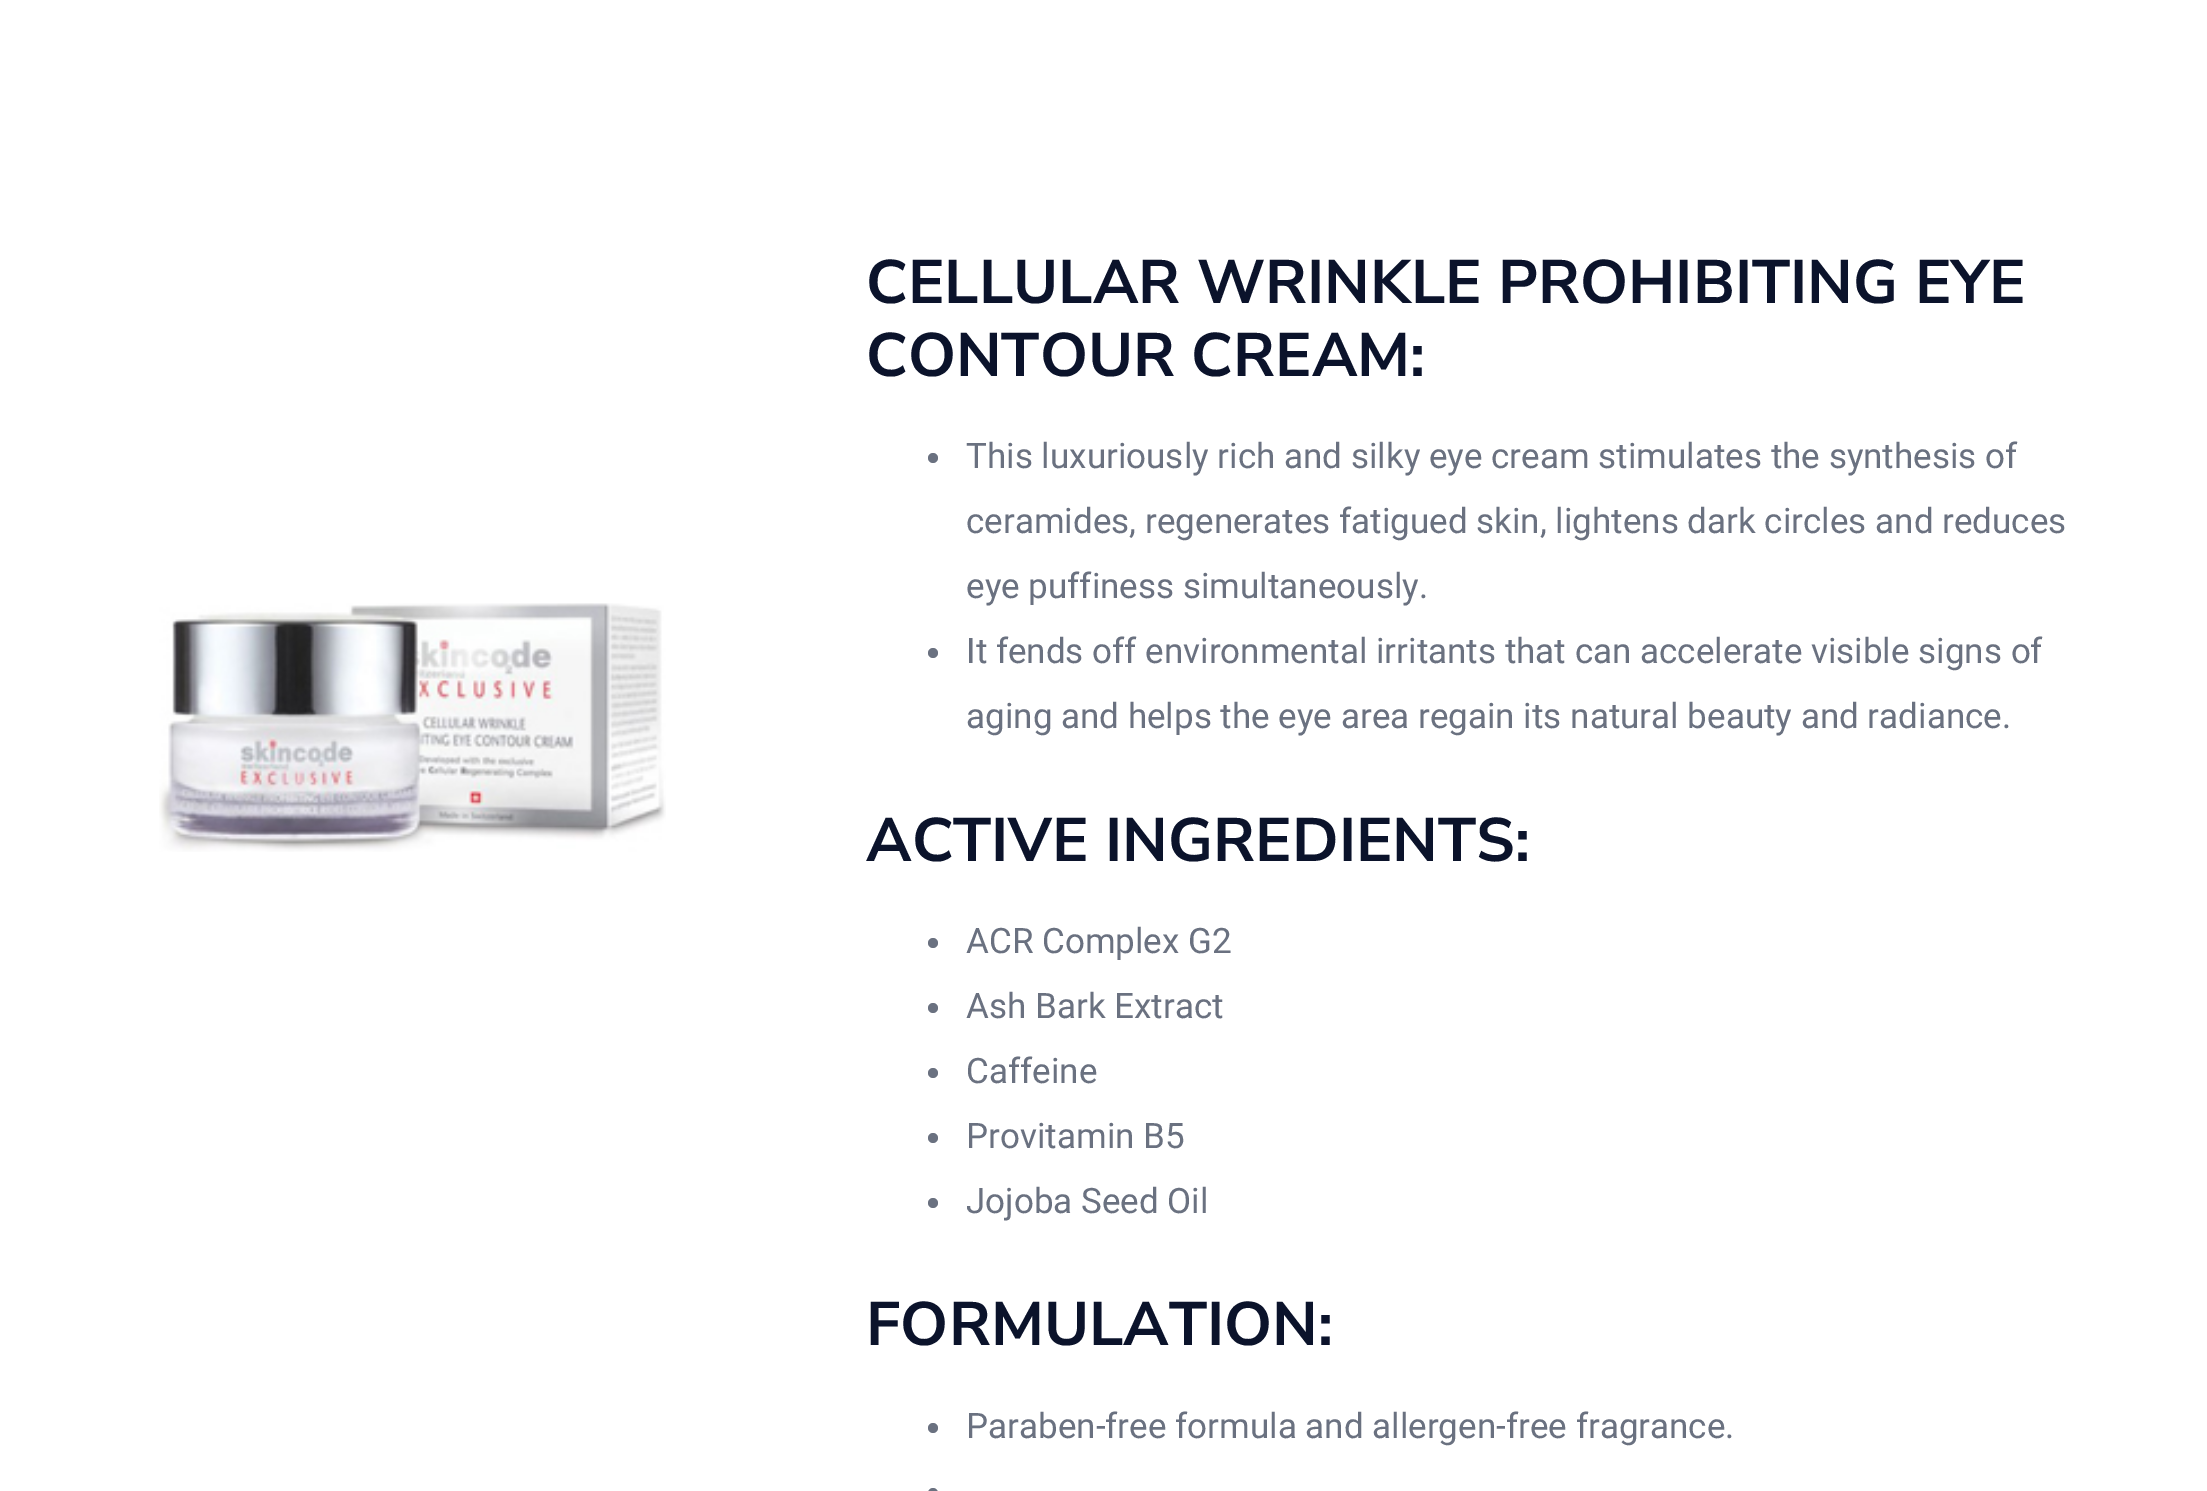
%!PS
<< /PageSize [2207 1491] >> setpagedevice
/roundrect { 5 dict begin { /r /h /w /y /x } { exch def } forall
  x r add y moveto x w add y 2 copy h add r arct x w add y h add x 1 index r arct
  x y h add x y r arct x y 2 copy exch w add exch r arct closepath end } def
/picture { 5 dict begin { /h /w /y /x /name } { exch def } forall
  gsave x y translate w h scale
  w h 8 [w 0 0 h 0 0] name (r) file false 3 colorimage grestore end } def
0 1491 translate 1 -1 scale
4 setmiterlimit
1 setgray
0 0 2207 1491 rectfill
(img1.rgb) 159 603 507 249 picture
/NunitoSans-Bold [61.25 0 0 -61.25 0 0] selectfont
0.043 0.075 0.169 setrgbcolor
866 303 moveto (CELLULAR WRINKLE PROHIBITING EYE) show
866 376 moveto (CONTOUR CREAM:) show
0.416 0.443 0.502 setrgbcolor
newpath 933 458 5 0 360 arc closepath fill
/Roboto-Regular [35 0 0 -35 0 0] selectfont
966 468 moveto (This luxuriously rich and silky eye cream stimulates the synthesis of) show
966 533 moveto (ceramides, regenerates fatigued skin, lightens dark circles and reduces) show
966 598 moveto (eye puffiness simultaneously.) show
newpath 933 653 5 0 360 arc closepath fill
966 663 moveto (It fends off environmental irritants that can accelerate visible signs of) show
966 728 moveto (aging and helps the eye area regain its natural beauty and radiance.) show
/NunitoSans-Bold [61.25 0 0 -61.25 0 0] selectfont
0.043 0.075 0.169 setrgbcolor
866 861 moveto (ACTIVE INGREDIENTS:) show
0.416 0.443 0.502 setrgbcolor
newpath 933 943 5 0 360 arc closepath fill
/Roboto-Regular [35 0 0 -35 0 0] selectfont
966 953 moveto (ACR Complex G2) show
newpath 933 1008 5 0 360 arc closepath fill
966 1018 moveto (Ash Bark Extract) show
newpath 933 1073 5 0 360 arc closepath fill
966 1083 moveto (Caffeine) show
newpath 933 1138 5 0 360 arc closepath fill
966 1148 moveto (Provitamin B5) show
newpath 933 1203 5 0 360 arc closepath fill
966 1213 moveto (Jojoba Seed Oil) show
/NunitoSans-Bold [61.25 0 0 -61.25 0 0] selectfont
0.043 0.075 0.169 setrgbcolor
866 1345 moveto (FORMULATION:) show
0.416 0.443 0.502 setrgbcolor
newpath 933 1428 5 0 360 arc closepath fill
/Roboto-Regular [35 0 0 -35 0 0] selectfont
966 1438 moveto (Paraben-free formula and allergen-free fragrance.) show
928 1488 10 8 5 roundrect fill
showpage
